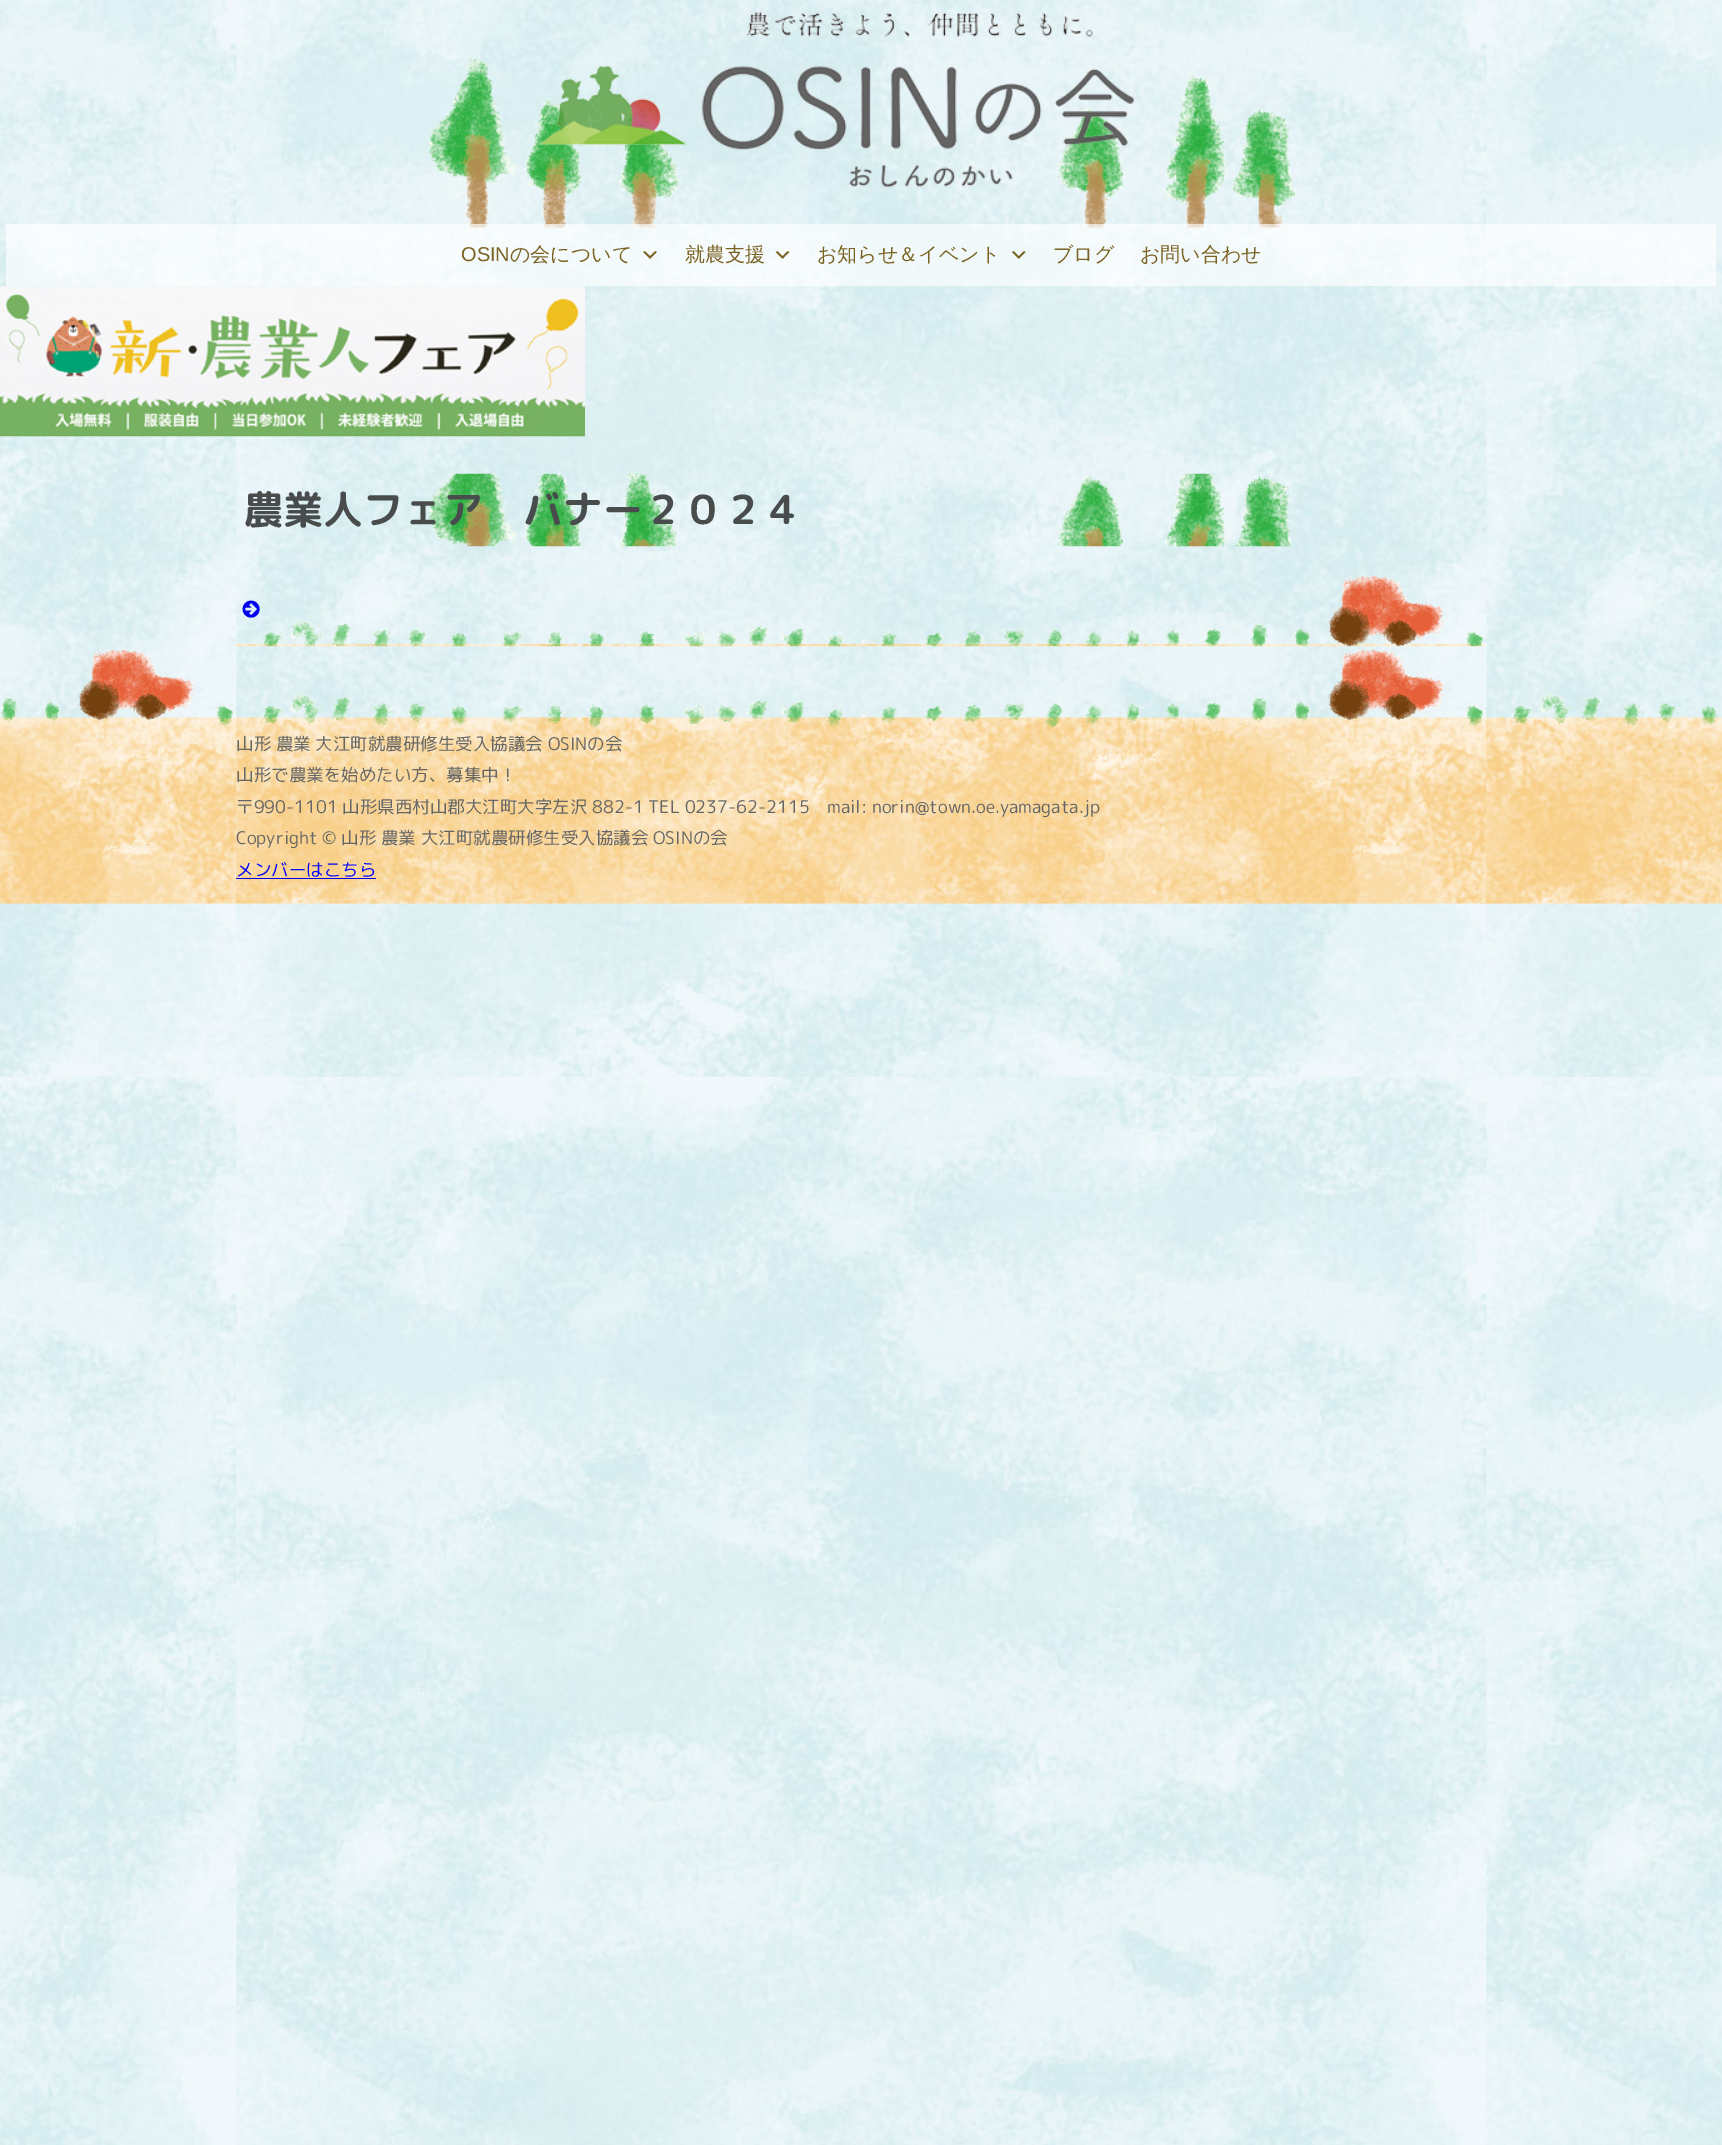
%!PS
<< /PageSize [1722 2145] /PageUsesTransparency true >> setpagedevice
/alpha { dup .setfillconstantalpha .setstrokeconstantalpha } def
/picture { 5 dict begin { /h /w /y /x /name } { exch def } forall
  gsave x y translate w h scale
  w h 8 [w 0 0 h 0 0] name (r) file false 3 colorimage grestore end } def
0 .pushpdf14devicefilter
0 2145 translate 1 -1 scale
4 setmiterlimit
1 setgray
0 0 1722 2145 rectfill
(img1.rgb) 0 0 1722 2145 picture
(img2.rgb) 428 58 868 170 picture
(img3.rgb) 538 12 596 176 picture
0.65 alpha
6 224 1710 62 rectfill
/LiberationSans-Regular [20 0 0 -20 0 0] selectfont
1 alpha
0.478 0.384 0.133 setrgbcolor
461 261 moveto (OSIN) show
/WenQuanYiZenHei-Medium [20 0 0 -20 0 0] selectfont
510 261 moveto (の会について) show
(img4.rgb) 643 251 14 8 picture
685 261 moveto (就農支援) show
(img5.rgb) 775 251 15 8 picture
817 261 moveto (お知らせ＆イベント) show
(img6.rgb) 1011 251 15 8 picture
1053 261 moveto (ブログ) show
1140 261 moveto (お問い合わせ) show
(img7.rgb) 0 286 585 151 picture
(img8.rgb) 427 473 865 74 picture
/RoundedMplus1cBold-Bold [40 0 0 -40 0 0] selectfont
0.282 0.298 0.298 setrgbcolor
243 524 moveto (農業人フェア　バナー２０２４) show
(img9.rgb) 236 576 1251 71 picture
(img10.rgb) 242 600 18 18 picture
(img11.rgb) 0 649 1722 255 picture
/RoundedMplus1c-Regular [17.5 0 0 -17.5 0 0] selectfont
0.4 setgray
236 750 moveto (山形 農業 大江町就農研修生受入協議会 OSINの会) show
236 781 moveto (山形で農業を始めたい方、募集中！) show
236 813 moveto (〒990-1101 山形県西村山郡大江町大字左沢 882-1 TEL 0237-62-2115　mail: norin@town.oe.yamagata.jp) show
236 844 moveto (Copyright © 山形 農業 大江町就農研修生受入協議会 OSINの会) show
0 0 1 setrgbcolor
236 876 moveto (メンバーはこちら) show
0 0 0.933 setrgbcolor
236 878 140 1 rectfill
.poppdf14devicefilter showpage
